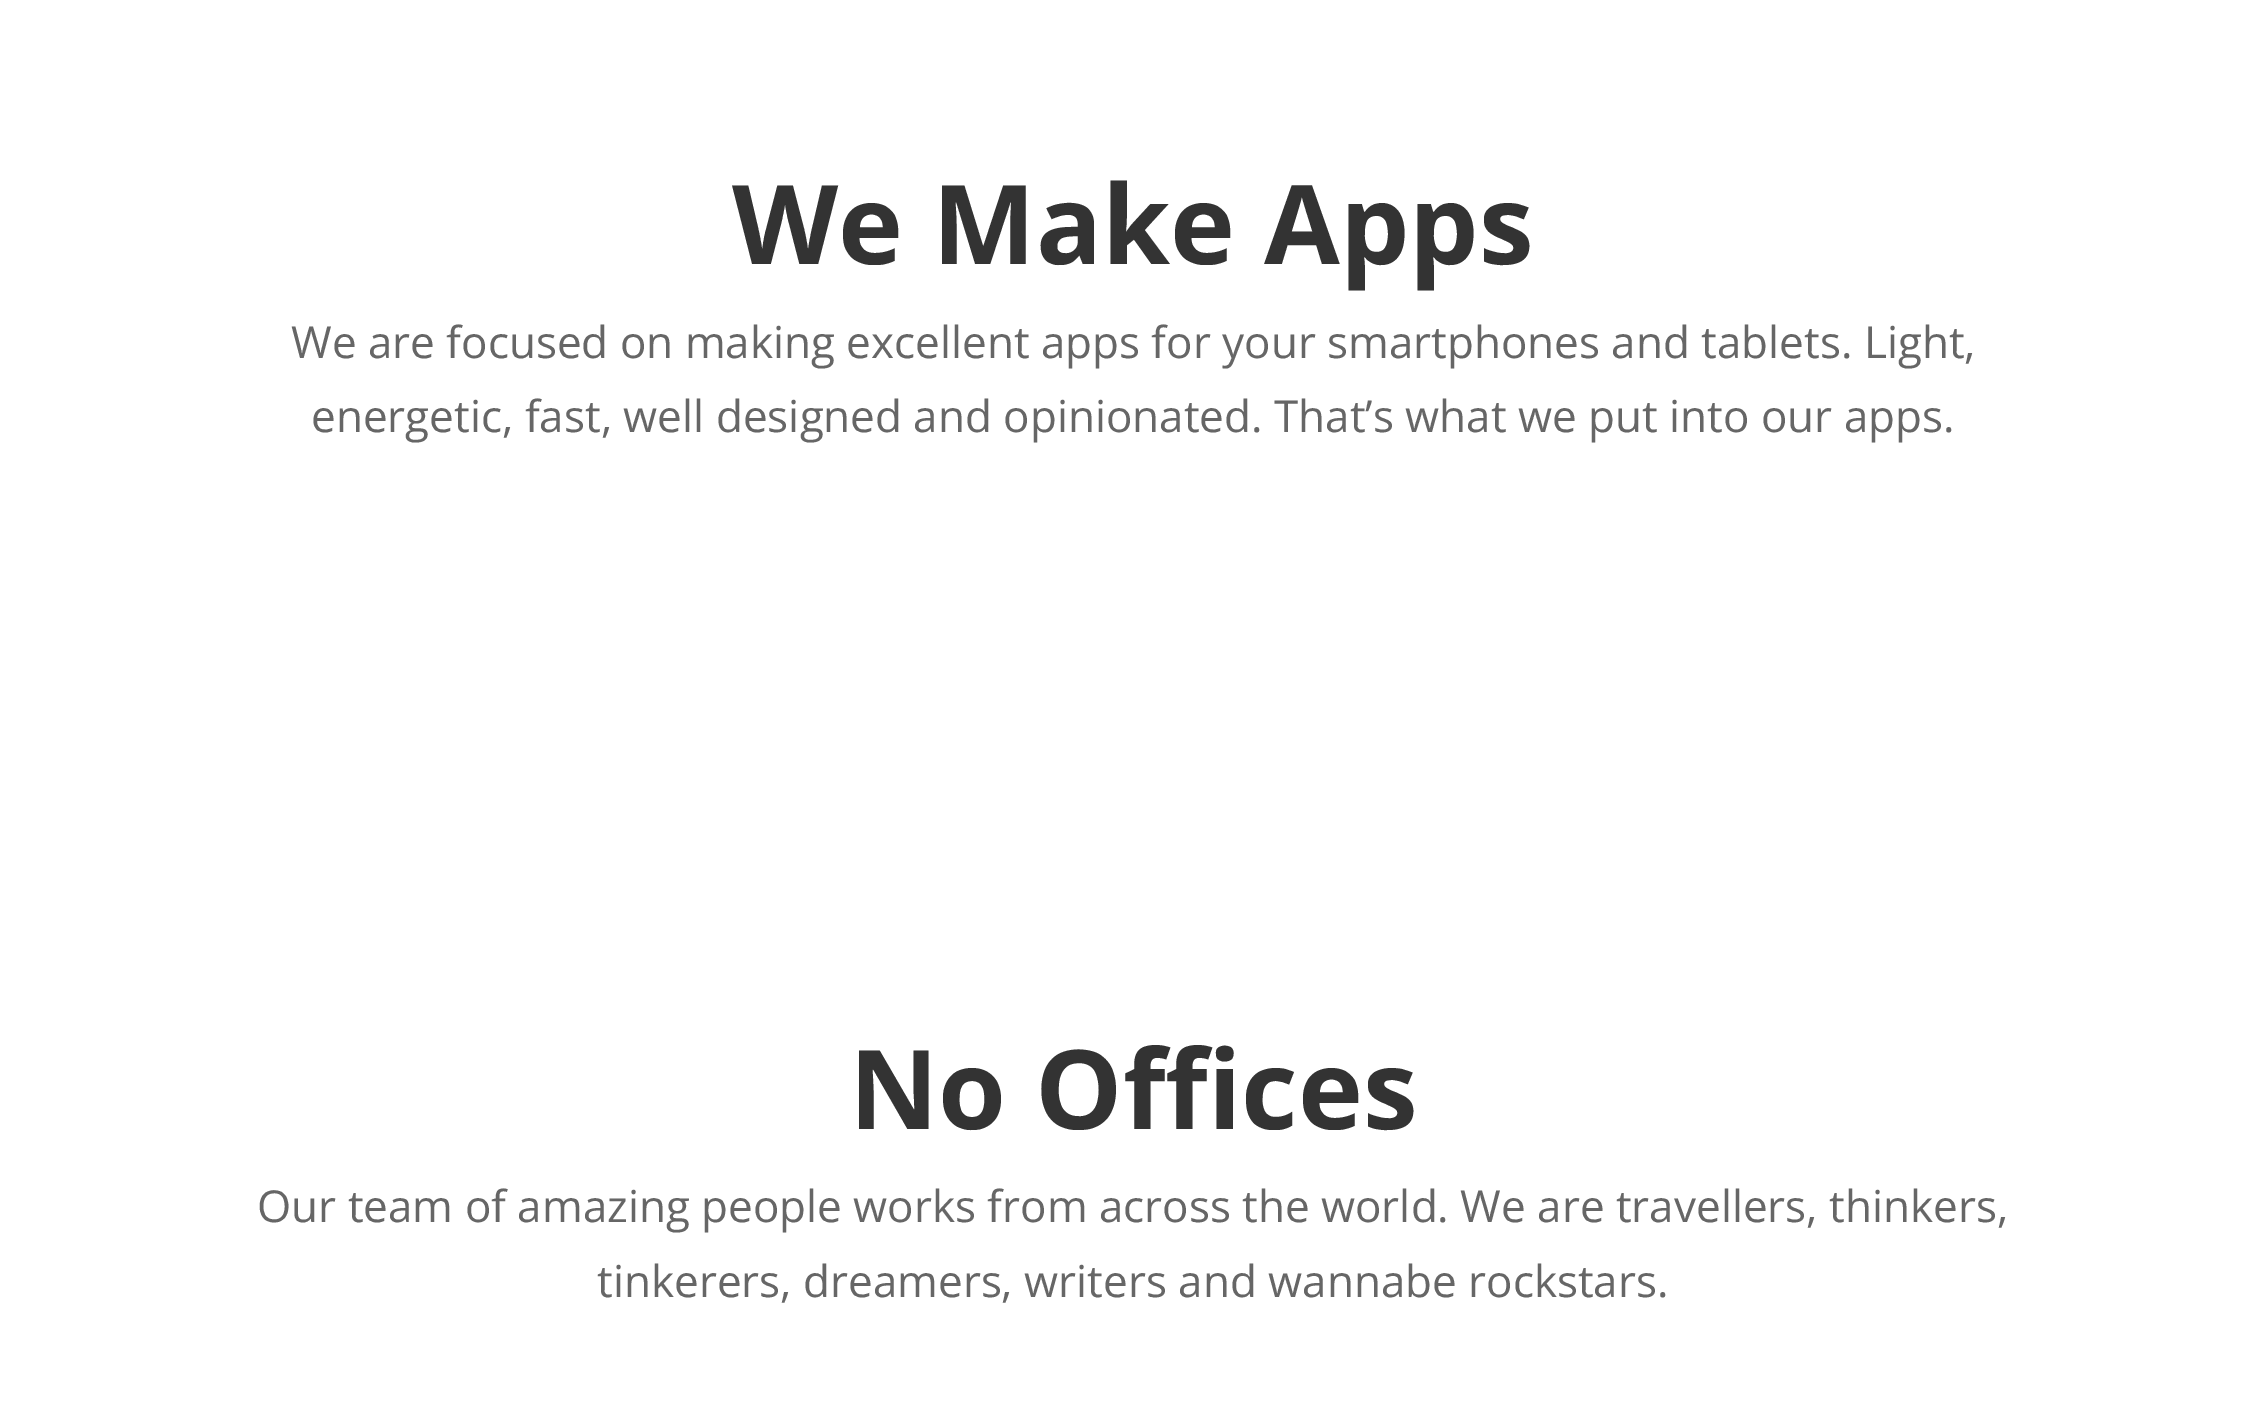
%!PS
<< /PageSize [2266 1407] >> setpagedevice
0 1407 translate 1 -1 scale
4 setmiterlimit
1 setgray
0 0 2266 1407 rectfill
/OpenSans-Bold [110 0 0 -110 0 0] selectfont
0.2 setgray
732 264 moveto (We Make Apps) show
/OpenSans-Regular [44 0 0 -44 0 0] selectfont
0.4 setgray
291 358 moveto (We are focused on making excellent apps for your smartphones and tablets. Light,) show
311 432 moveto (energetic, fast, well designed and opinionated. That’s what we put into our apps.) show
/OpenSans-Bold [110 0 0 -110 0 0] selectfont
0.2 setgray
849 1129 moveto (No Offices) show
/OpenSans-Regular [44 0 0 -44 0 0] selectfont
0.4 setgray
257 1222 moveto (Our team of amazing people works from across the world. We are travellers, thinkers,) show
597 1297 moveto (tinkerers, dreamers, writers and wannabe rockstars.) show
showpage
